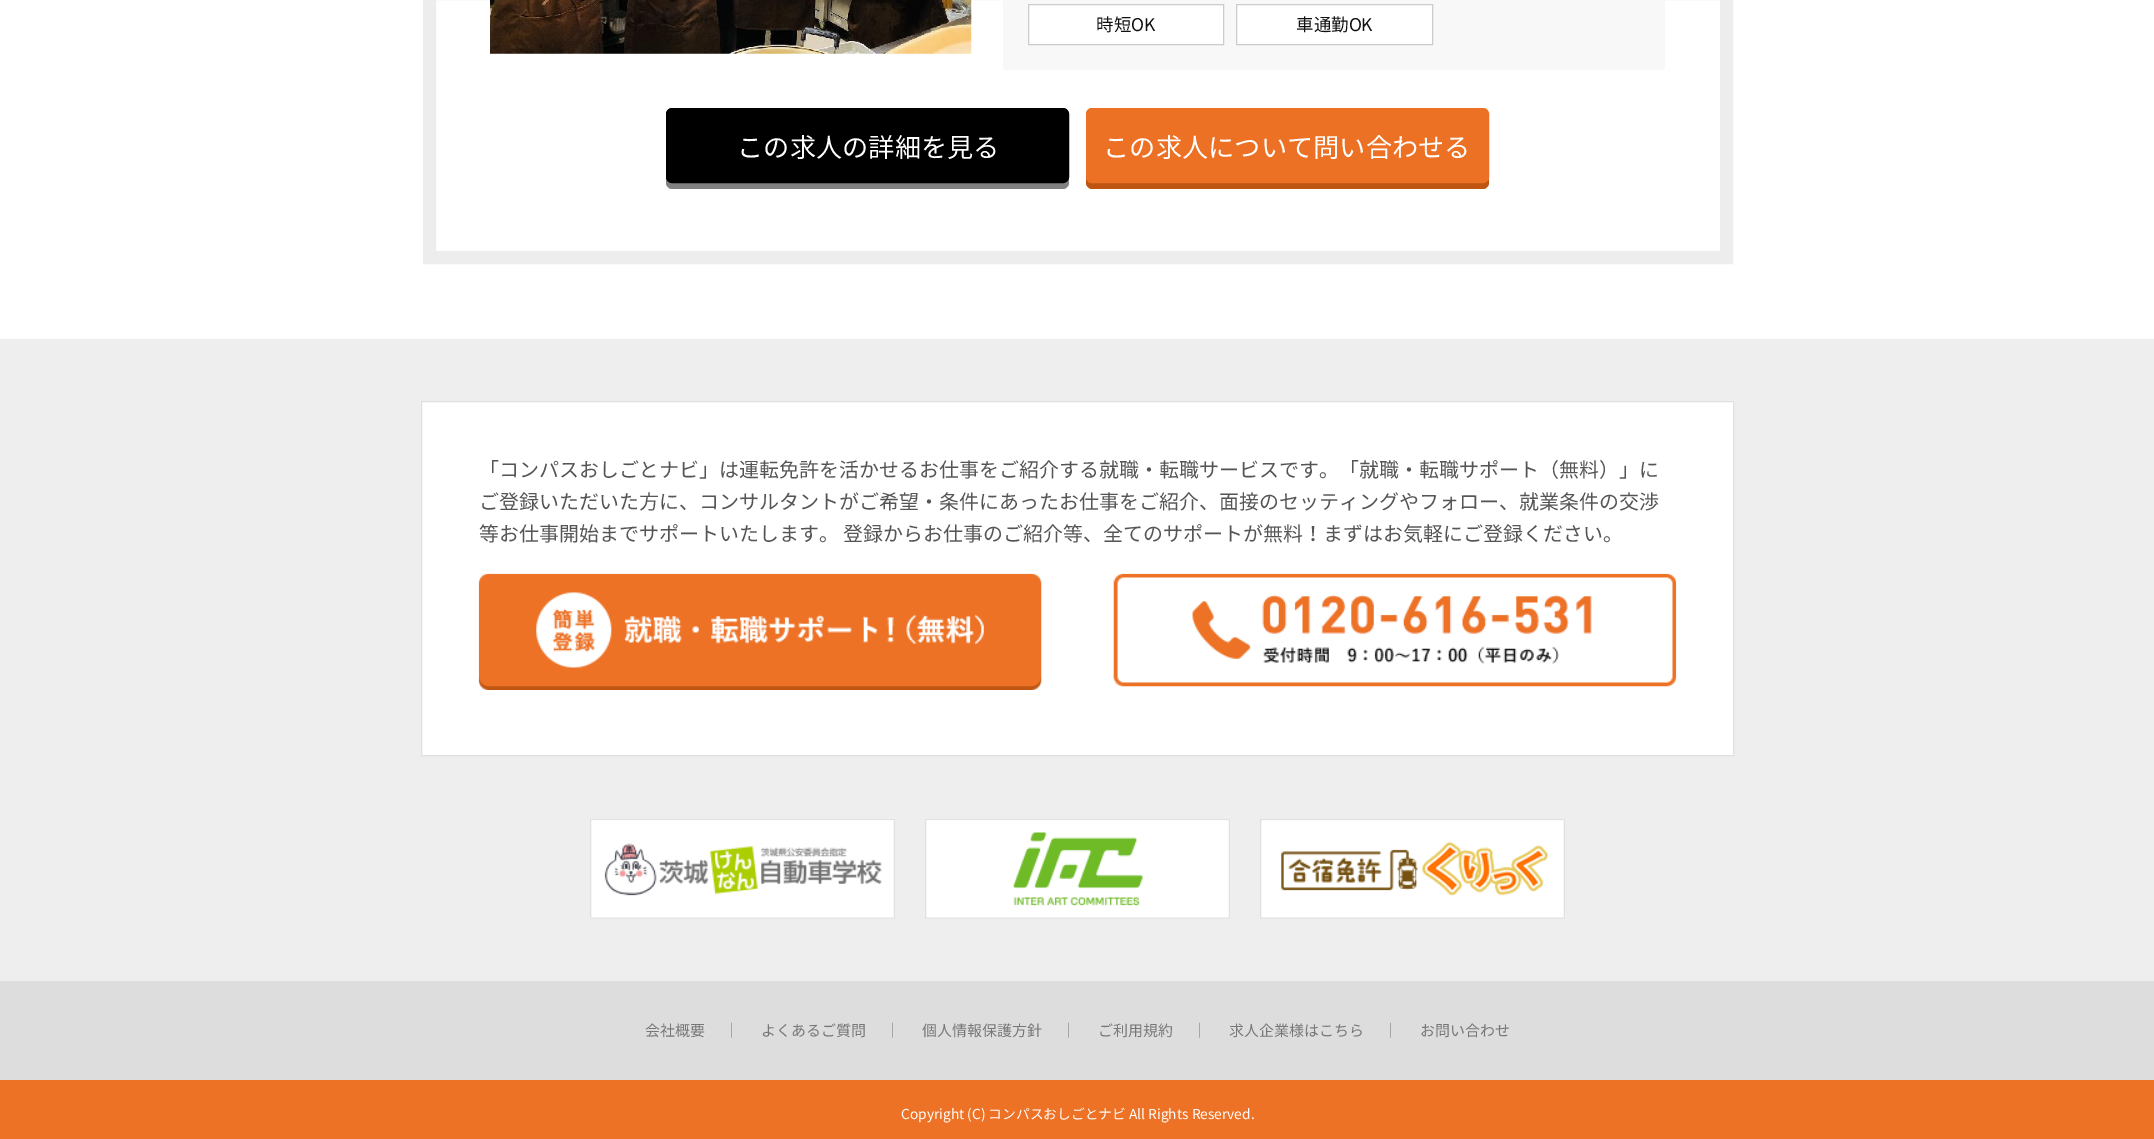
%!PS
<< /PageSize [2154 1139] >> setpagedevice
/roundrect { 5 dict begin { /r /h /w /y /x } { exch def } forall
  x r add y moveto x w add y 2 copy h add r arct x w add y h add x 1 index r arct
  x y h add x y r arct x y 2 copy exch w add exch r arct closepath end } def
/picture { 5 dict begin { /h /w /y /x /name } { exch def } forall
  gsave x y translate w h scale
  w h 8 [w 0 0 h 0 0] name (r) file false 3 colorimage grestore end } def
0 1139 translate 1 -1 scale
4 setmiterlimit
0.933 setgray
0 0 2154 1139 rectfill
1 setgray
0 0 2154 339 rectfill
0.929 setgray
13 setlinewidth
429.5 -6.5 1297 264 rectstroke
(img1.rgb) 490 0 482 54 picture
0.973 setgray
1003 0 662 70 rectfill
1 setgray
newpath 1028.5 4.5 moveto 1223.5 4.5 lineto 1223.5 44.5 lineto 1028.5 44.5 lineto closepath gsave fill grestore
0.8 setgray
1 setlinewidth
stroke
/NotoSansJP-Regular [17.5 0 0 -17.5 0 0] selectfont
0.067 setgray
1096 31 moveto (時短OK) show
1 setgray
newpath 1236.5 4.5 moveto 1432.5 4.5 lineto 1432.5 44.5 lineto 1236.5 44.5 lineto closepath gsave fill grestore
0.8 setgray
stroke
0.067 setgray
1296 31 moveto (車通勤OK) show
0.506 setgray
newpath 666 118 moveto 666 183 lineto 666 186 669 189 672 189 curveto 1063 189 lineto 1066 189 1069 186 1069 183 curveto 1069 118 lineto 1069 176 lineto 1069 180 1066 182 1062 182 curveto 672 182 lineto 669 182 666 180 666 176 curveto closepath fill
0 setgray
666.5 108.5 402 74 5.5 roundrect gsave fill grestore
stroke
/NotoSansJP-Regular [26.25 0 0 -26.25 0 0] selectfont
1 setgray
737 157 moveto (この求人の詳細を見る) show
0.749 0.333 0.075 setrgbcolor
newpath 1086 118 moveto 1086 183 lineto 1086 186 1089 189 1092 189 curveto 1483 189 lineto 1486 189 1489 186 1489 183 curveto 1489 118 lineto 1489 176 lineto 1489 180 1486 182 1482 182 curveto 1092 182 lineto 1089 182 1086 180 1086 176 curveto closepath fill
0.929 0.443 0.145 setrgbcolor
1086.5 108.5 402 74 5.5 roundrect gsave fill grestore
stroke
1 setgray
1103 157 moveto (この求人について問い合わせる) show
newpath 421.5 401.5 moveto 1733.5 401.5 lineto 1733.5 755.5 lineto 421.5 755.5 lineto closepath gsave fill grestore
0.878 setgray
stroke
/NotoSansJP-Regular [20 0 0 -20 0 0] selectfont
0.333 setgray
479 477 moveto (「コンパスおしごとナビ」は運転免許を活かせるお仕事をご紹介する就職・転職サービスです。「就職・転職サポート（無料）」に) show
479 509 moveto (ご登録いただいた方に、コンサルタントがご希望・条件にあったお仕事をご紹介、面接のセッティングやフォロー、就業条件の交渉) show
479 541 moveto (等お仕事開始までサポートいたします。 登録からお仕事のご紹介等、全てのサポートが無料！まずはお気軽にご登録ください。) show
(img2.rgb) 478 573 564 117 picture
(img3.rgb) 1113 573 564 114 picture
(img4.rgb) 590 819 305 100 picture
(img5.rgb) 925 819 305 100 picture
(img6.rgb) 1260 819 305 100 picture
0.867 setgray
0 981 2154 99 rectfill
/NotoSansJP-Regular [15 0 0 -15 0 0] selectfont
0.467 setgray
645 1036 moveto (会社概要) show
724 1036 moveto (｜) show
761 1036 moveto (よくあるご質問) show
885 1036 moveto (｜) show
922 1036 moveto (個人情報保護方針) show
1061 1036 moveto (｜) show
1098 1036 moveto (ご利用規約) show
1192 1036 moveto (｜) show
1229 1036 moveto (求人企業様はこちら) show
1383 1036 moveto (｜) show
1420 1036 moveto (お問い合わせ) show
0.929 0.447 0.149 setrgbcolor
0 1080 2154 59 rectfill
/NotoSansJP-Regular [13.75 0 0 -13.75 0 0] selectfont
1 setgray
901 1119 moveto (Copyright \(C\) コンパスおしごとナビ All Rights Reserved.) show
showpage
